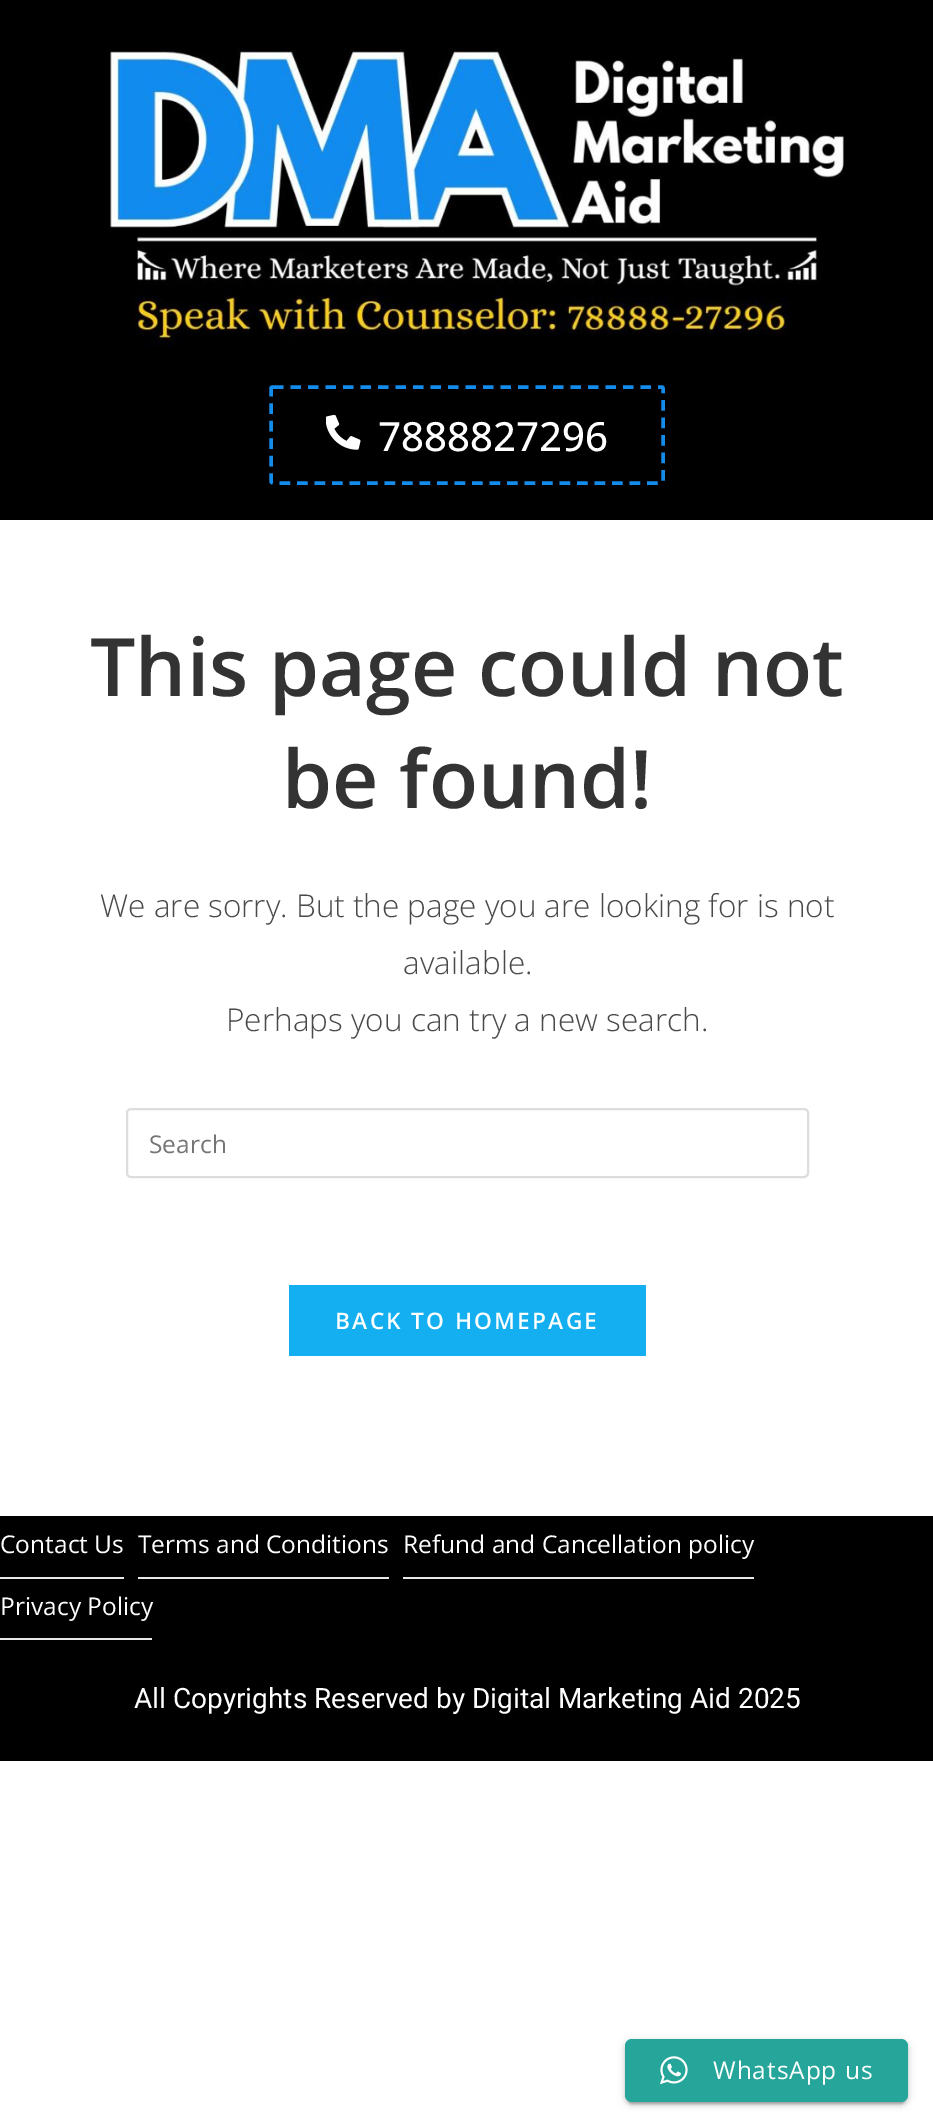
%!PS
<< /PageSize [933 2127] /PageUsesTransparency true >> setpagedevice
/alpha { dup .setfillconstantalpha .setstrokeconstantalpha } def
/roundrect { 5 dict begin { /r /h /w /y /x } { exch def } forall
  x r add y moveto x w add y 2 copy h add r arct x w add y h add x 1 index r arct
  x y h add x y r arct x y 2 copy exch w add exch r arct closepath end } def
/shadow { 12 dict begin { /a /b /q /h /w /y /x } { exch def } forall gsave /was 0 def
  9 -2 -9 { dup b mul 4 div /e exch def 1 sub .425 mul 2.718 exch exp 1 add a .99 .min exch div /now exch def
    1 1 now sub 1 was sub div sub alpha /was now def
    w h .min e 2 mul add 0 gt { x e sub y e sub w e 2 mul add h e 2 mul add
      q e add b .6 mul add w h .min 2 div e add .min 0 .max roundrect fill } if } for grestore end } def
/picture { 5 dict begin { /h /w /y /x /name } { exch def } forall
  gsave x y translate w h scale
  w h 8 [w 0 0 h 0 0] name (r) file false 3 colorimage grestore end } def
0 .pushpdf14devicefilter
0 2127 translate 1 -1 scale
4 setmiterlimit
1 setgray
0 0 933 2127 rectfill
0 setgray
0 0 933 520 rectfill
(img1.rgb) 107 48 737 299 picture
0.078 0.549 0.925 setrgbcolor
3.5 setlinewidth
[10.5 7] 0 setdash
newpath 273 387 moveto 661.5 387 lineto 662.5 387 663 387.5 663 388.5 curveto 663 481 lineto 663 482 662.5 483 661.5 483 curveto 273 483 lineto 272 483 271 482 271 481 curveto 271 388.5 lineto 271 387.5 272 387 273 387 curveto closepath stroke
(img2.rgb) 326 415 35 35 picture
/OpenSans-Medium [40.25 0 0 -40.25 0 0] selectfont
1 setgray
378 451 moveto (7888827296) show
/OpenSans-SemiBold [80.5 0 0 -80.5 0 0] selectfont
0.2 setgray
90 696 moveto (This page could not) show
282 808 moveto (be found!) show
/OpenSans-Light [31.5 0 0 -31.5 0 0] selectfont
0.29 setgray
100 917 moveto (We are sorry. But the page you are looking for is not) show
403 974 moveto (available.) show
226 1031 moveto (Perhaps you can try a new search.) show
0.867 setgray
2 setlinewidth
[] 0 setdash
127 1109 681 68 4 roundrect stroke
/OpenSans-Regular [24.5 0 0 -24.5 0 0] selectfont
0.459 setgray
149 1153 moveto (Search) show
0.075 0.686 0.941 setrgbcolor
289 1285 357 71 rectfill
/OpenSans-SemiBold [22.75 0 0 -22.75 0 0] selectfont
1 setgray
335 1329 moveto 2.25 0 (BACK TO HOMEPAGE) ashow
0 setgray
0 1516 933 245 rectfill
0.91 setgray
0 1577 124 2 rectfill
/OpenSans-Regular [24.5 0 0 -24.5 0 0] selectfont
1 setgray
0 1553 moveto (Contact Us) show
0.91 setgray
138 1577 251 2 rectfill
1 setgray
138 1553 moveto (Terms and Conditions) show
0.91 setgray
403 1577 351 2 rectfill
1 setgray
403 1553 moveto (Refund and Cancellation policy) show
0.91 setgray
0 1638 152 2 rectfill
1 setgray
0 1615 moveto (Privacy Policy) show
/Roboto-Regular [28 0 0 -28 0 0] selectfont
134 1708 moveto (All Copyrights Reserved by Digital Marketing Aid 2025) show
0 setgray
628 2048 277 56 4 1 0.2 shadow
625 2041 283 63 7 4.5 0.12 shadow
625 2042 283 63 7 2 0.14 shadow
0.149 0.651 0.604 setrgbcolor
625 2039 283 63 7 roundrect fill
(img3.rgb) 660 2056 28 28 picture
/OpenSans-Regular [24.5 0 0 -24.5 0 0] selectfont
1 setgray
713 2079 moveto 0.9 0 (WhatsApp us) ashow
.poppdf14devicefilter showpage
